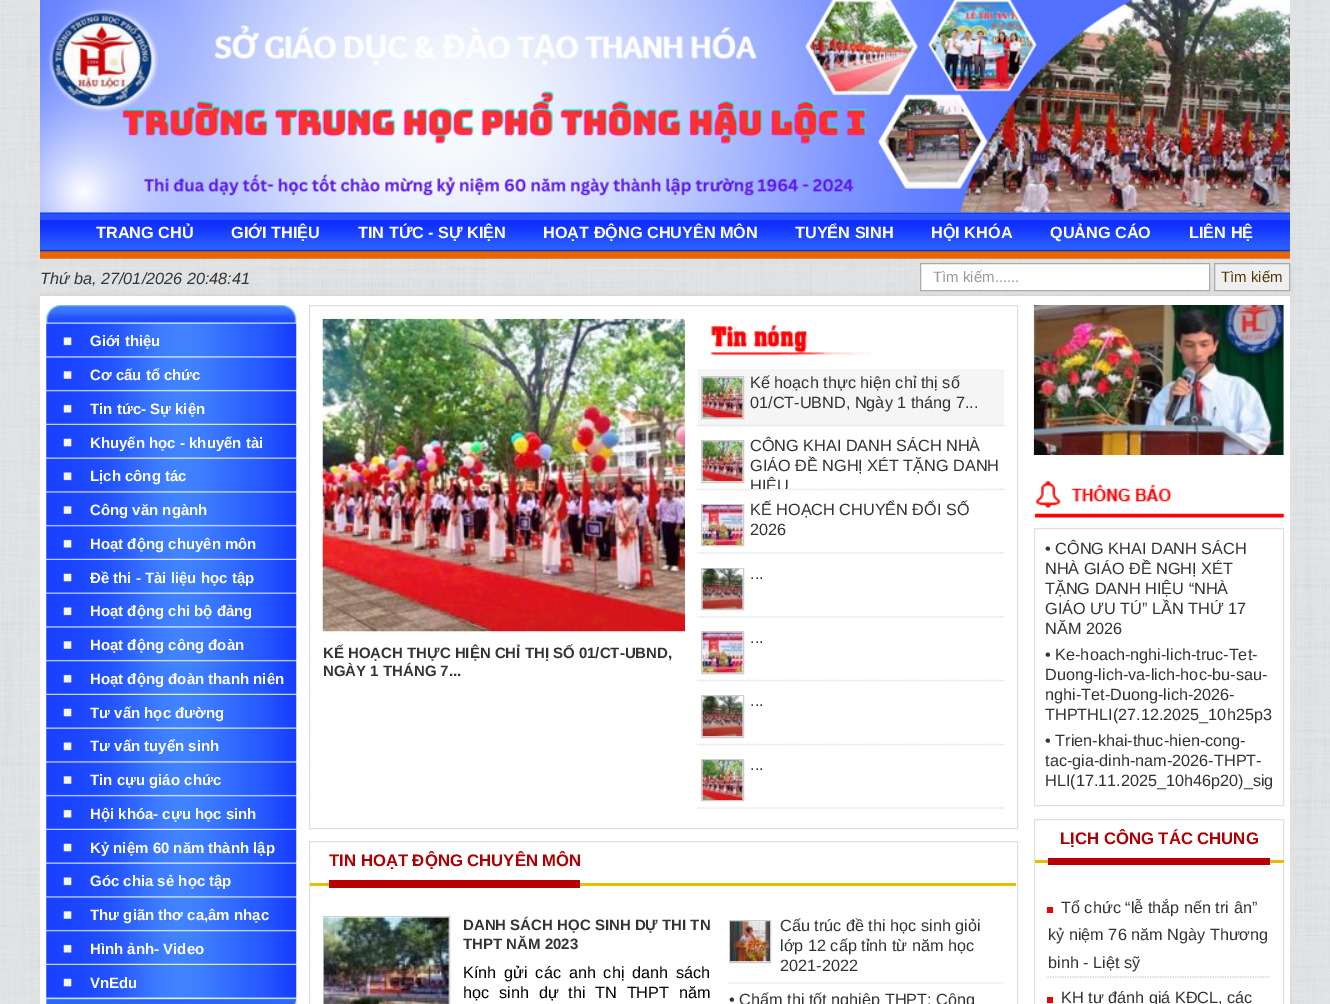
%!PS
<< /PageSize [1330 1004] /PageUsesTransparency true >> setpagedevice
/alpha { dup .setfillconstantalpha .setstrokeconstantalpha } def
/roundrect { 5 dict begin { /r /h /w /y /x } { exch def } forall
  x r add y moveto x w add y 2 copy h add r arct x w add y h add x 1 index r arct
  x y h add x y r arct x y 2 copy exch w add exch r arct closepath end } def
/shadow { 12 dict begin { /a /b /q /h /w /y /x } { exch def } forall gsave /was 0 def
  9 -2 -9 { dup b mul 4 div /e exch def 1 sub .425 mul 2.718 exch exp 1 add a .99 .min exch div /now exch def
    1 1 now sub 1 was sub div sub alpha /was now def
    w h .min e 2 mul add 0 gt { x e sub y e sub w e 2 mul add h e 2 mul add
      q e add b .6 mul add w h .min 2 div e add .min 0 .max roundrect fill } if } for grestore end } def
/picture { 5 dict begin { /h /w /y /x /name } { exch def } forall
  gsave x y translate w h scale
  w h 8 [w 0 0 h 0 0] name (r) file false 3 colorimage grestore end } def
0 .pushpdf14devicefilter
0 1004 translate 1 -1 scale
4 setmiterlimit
1 setgray
0 0 1330 1004 rectfill
(img1.rgb) 0 0 1330 1004 picture
(img2.rgb) 40 0 1250 213 picture
(img3.rgb) 40 212 1250 47 picture
/LiberationSans-Bold [16.25 0 0 -16.25 0 0] selectfont
96 238 moveto (TRANG CHỦ) show
231 238 moveto (GIỚI THIỆU) show
358 238 moveto (TIN TỨC - SỰ KIỆN) show
543 238 moveto (HOẠT ĐỘNG CHUYÊN MÔN) show
795 238 moveto (TUYỂN SINH) show
931 238 moveto (HỘI KHÓA) show
1050 238 moveto (QUẢNG CÁO) show
1189 238 moveto (LIÊN HỆ) show
gsave
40 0 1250 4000 rectclip
0.8 setgray
34 296 1262 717 0 3 1 shadow
grestore
/LiberationSans-Italic [16.25 0 0 -16.25 0 0] selectfont
0.2 setgray
40 284 moveto (Thứ ba, 27/01/2026 20:48:41) show
1 setgray
newpath 920.5 263.5 moveto 1209.5 263.5 lineto 1209.5 290.5 lineto 920.5 290.5 lineto closepath gsave fill grestore
0.667 setgray
stroke
/LiberationSans-Regular [15 0 0 -15 0 0] selectfont
0.6 setgray
933 282 moveto (Tìm kiếm......) show
0.937 setgray
newpath 1214.5 263.5 moveto 1289.5 263.5 lineto 1289.5 290.5 lineto 1214.5 290.5 lineto closepath gsave fill grestore
0.667 setgray
stroke
0.329 0.204 0.004 setrgbcolor
1221 282 moveto (Tìm kiếm) show
1 setgray
40 296 1250 708 rectfill
(img4.rgb) 46 305 251 19 picture
(img5.rgb) 46 323 251 35 picture
/LiberationSans-Bold [15 0 0 -15 0 0] selectfont
90 346 moveto (Giới thiệu) show
(img6.rgb) 46 357 251 35 picture
90 380 moveto (Cơ cấu tổ chức) show
(img7.rgb) 46 391 251 34 picture
90 414 moveto (Tin tức- Sự kiện) show
(img8.rgb) 46 425 251 34 picture
90 448 moveto (Khuyến học - khuyến tài) show
(img9.rgb) 46 458 251 35 picture
90 481 moveto (Lịch công tác) show
(img6.rgb) 46 492 251 35 picture
90 515 moveto (Công văn ngành) show
(img7.rgb) 46 526 251 34 picture
90 549 moveto (Hoạt động chuyên môn) show
(img10.rgb) 46 560 251 34 picture
90 583 moveto (Đề thi - Tài liệu học tập) show
(img9.rgb) 46 593 251 35 picture
90 616 moveto (Hoạt động chi bộ đảng) show
(img6.rgb) 46 627 251 35 picture
90 650 moveto (Hoạt động công đoàn) show
(img7.rgb) 46 661 251 34 picture
90 684 moveto (Hoạt động đoàn thanh niên) show
(img8.rgb) 46 695 251 34 picture
90 718 moveto (Tư vấn học đường) show
(img9.rgb) 46 728 251 35 picture
90 751 moveto (Tư vấn tuyển sinh) show
(img6.rgb) 46 762 251 35 picture
90 785 moveto (Tin cựu giáo chức) show
(img7.rgb) 46 796 251 34 picture
90 819 moveto (Hội khóa- cựu học sinh) show
(img8.rgb) 46 830 251 34 picture
90 853 moveto (Kỷ niệm 60 năm thành lập) show
(img9.rgb) 46 863 251 35 picture
90 886 moveto (Góc chia sẻ học tập) show
(img6.rgb) 46 897 251 35 picture
90 920 moveto (Thư giãn thơ ca,âm nhạc) show
(img7.rgb) 46 931 251 34 picture
90 954 moveto (Hình ảnh- Video) show
(img12.rgb) 46 998 251 6 picture
(img11.rgb) 46 965 251 34 picture
90 988 moveto (VnEdu) show
0.878 setgray
309.5 305.5 708 523 rectstroke
(img13.rgb) 322 318 363 314 picture
0.2 setgray
323 658 moveto (KẾ HOẠCH THỰC HIỆN CHỈ THỊ SỐ 01/CT-UBND,) show
323 676 moveto (NGÀY 1 THÁNG 7...) show
(img14.rgb) 711 324 160 32 picture
0.965 0.961 0.961 setrgbcolor
698 369 306 57 rectfill
0.867 setgray
1.2 setlinewidth
[1.25 1.25] 0 setdash
newpath 697.5 425.5 moveto 1004 425.5 lineto stroke
0.8 setgray
1 setlinewidth
[] 0 setdash
701.5 376.5 42 42 rectstroke
(img15.rgb) 702 377 41 41 picture
/LiberationSans-Regular [16.25 0 0 -16.25 0 0] selectfont
0.2 setgray
750 388 moveto (Kế hoạch thực hiện chỉ thị số) show
750 408 moveto (01/CT-UBND, Ngày 1 tháng 7...) show
0.867 setgray
1.2 setlinewidth
[1.25 1.25] 0 setdash
newpath 697.5 489.5 moveto 1004 489.5 lineto stroke
0.8 setgray
1 setlinewidth
[] 0 setdash
701.5 440.5 42 42 rectstroke
(img16.rgb) 702 441 41 41 picture
0.2 setgray
750 451 moveto (CÔNG KHAI DANH SÁCH NHÀ) show
750 471 moveto (GIÁO ĐỀ NGHỊ XÉT TẶNG DANH) show
gsave
698 433 306 56 rectclip
750 491 moveto (HIỆU) show
grestore
0.867 setgray
1.2 setlinewidth
[1.25 1.25] 0 setdash
newpath 697.5 553 moveto 1004 553 lineto stroke
0.8 setgray
1 setlinewidth
[] 0 setdash
701.5 504.5 42 41 rectstroke
(img17.rgb) 702 505 41 40 picture
0.2 setgray
750 515 moveto (KẾ HOẠCH CHUYỂN ĐỔI SỐ) show
750 535 moveto (2026) show
0.867 setgray
1.2 setlinewidth
[1.25 1.25] 0 setdash
newpath 697.5 617 moveto 1004 617 lineto stroke
0.8 setgray
1 setlinewidth
[] 0 setdash
701.5 568.5 42 41 rectstroke
(img18.rgb) 702 568 41 41 picture
0.2 setgray
750 579 moveto (...) show
0.867 setgray
1.2 setlinewidth
[1.25 1.25] 0 setdash
newpath 697.5 680.5 moveto 1004 680.5 lineto stroke
0.8 setgray
1 setlinewidth
[] 0 setdash
701.5 631.5 42 42 rectstroke
(img19.rgb) 702 632 41 41 picture
0.2 setgray
750 643 moveto (...) show
0.867 setgray
1.2 setlinewidth
[1.25 1.25] 0 setdash
newpath 697.5 744.5 moveto 1004 744.5 lineto stroke
0.8 setgray
1 setlinewidth
[] 0 setdash
701.5 695.5 42 42 rectstroke
(img20.rgb) 702 696 41 41 picture
0.2 setgray
750 706 moveto (...) show
0.867 setgray
1.2 setlinewidth
[1.25 1.25] 0 setdash
newpath 697.5 808 moveto 1004 808 lineto stroke
0.8 setgray
1 setlinewidth
[] 0 setdash
701.5 759.5 42 41 rectstroke
(img21.rgb) 702 760 41 40 picture
0.2 setgray
750 770 moveto (...) show
0.878 setgray
309.5 841.5 708 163 rectstroke
0.918 0.737 0 setrgbcolor
310 883 706 3 rectfill
0.722 0 0.008 setrgbcolor
329 880 251 8 rectfill
/LiberationSans-Bold [16.7 0 0 -16.7 0 0] selectfont
0.682 0 0.008 setrgbcolor
329 866 moveto (TIN HOẠT ĐỘNG CHUYÊN MÔN) show
0.8 setgray
323.5 916.5 126 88 rectstroke
(img22.rgb) 323 917 126 87 picture
/LiberationSans-Bold [15 0 0 -15 0 0] selectfont
0.2 setgray
463 930 moveto (DANH SÁCH HỌC SINH DỰ THI TN) show
463 949 moveto (THPT NĂM 2023) show
/LiberationSans-Regular [16.25 0 0 -16.25 0 0] selectfont
0 setgray
463 978 moveto 3.25 0 32 (Kính gửi các anh chị danh sách) widthshow
463 998 moveto 5.25 0 32 (học sinh dự thi TN THPT năm) widthshow
0.867 setgray
1.2 setlinewidth
[1.25 1.25] 0 setdash
newpath 729 983 moveto 1004 983 lineto stroke
0.8 setgray
1 setlinewidth
[] 0 setdash
729.5 920.5 41 42 rectstroke
(img23.rgb) 730 921 40 41 picture
0.2 setgray
780 931 moveto (Cấu trúc đề thi học sinh giỏi) show
780 951 moveto (lớp 12 cấp tỉnh từ năm học) show
780 971 moveto (2021-2022) show
729 1005 moveto (• Chấm thi tốt nghiệp THPT: Công) show
(img24.rgb) 1033 305 251 150 picture
(img25.rgb) 1034 481 250 38 picture
0.878 setgray
1034.5 528.5 249 277 rectstroke
0.2 setgray
1045 554 moveto (• CÔNG KHAI DANH SÁCH) show
1045 574 moveto (NHÀ GIÁO ĐỀ NGHỊ XÉT) show
1045 594 moveto (TẶNG DANH HIỆU “NHÀ) show
1045 614 moveto (GIÁO ƯU TÚ” LẦN THỨ 17) show
1045 634 moveto (NĂM 2026) show
1045 660 moveto (• Ke-hoach-nghi-lich-truc-Tet-) show
1045 680 moveto (Duong-lich-va-lich-hoc-bu-sau-) show
1045 700 moveto (nghi-Tet-Duong-lich-2026-) show
1045 720 moveto (THPTHLI\(27.12.2025_10h25p3) show
1045 746 moveto (• Trien-khai-thuc-hien-cong-) show
1045 766 moveto (tac-gia-dinh-nam-2026-THPT-) show
1045 786 moveto (HLI\(17.11.2025_10h46p20\)_sig) show
0.878 setgray
1034.5 819.5 249 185 rectstroke
0.918 0.737 0 setrgbcolor
1035 860 249 3 rectfill
0.722 0 0.008 setrgbcolor
1048 858 222 7 rectfill
/LiberationSans-Bold [16.7 0 0 -16.7 0 0] selectfont
0.682 0 0.008 setrgbcolor
1060 844 moveto (LỊCH CÔNG TÁC CHUNG) show
0.8 setgray
1.2 setlinewidth
[1.25 1.25] 0 setdash
newpath 1047.5 977 moveto 1270 977 lineto stroke
/LiberationSans-Regular [16.25 0 0 -16.25 0 0] selectfont
0.2 setgray
1061 913 moveto (Tổ chức “lễ thắp nến tri ân”) show
0.906 0.024 0.024 setrgbcolor
1047 907 6 6 rectfill
0.2 setgray
1048 940 moveto (kỷ niệm 76 năm Ngày Thương) show
1048 968 moveto (binh - Liệt sỹ) show
1061 1003 moveto (KH tự đánh giá KĐCL, các) show
0.906 0.024 0.024 setrgbcolor
1047 997 6 6 rectfill
.poppdf14devicefilter showpage
